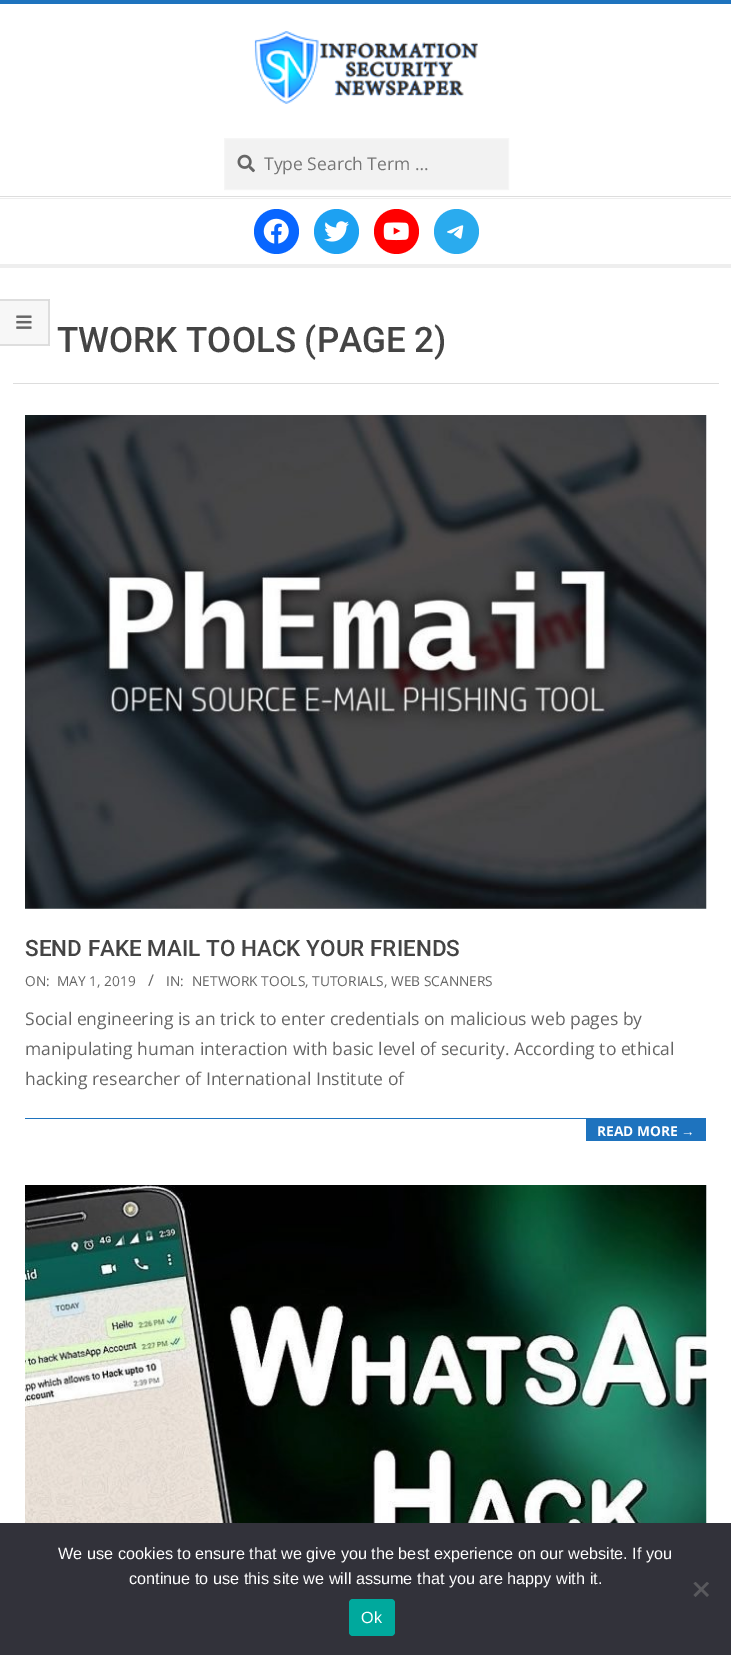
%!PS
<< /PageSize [731 1655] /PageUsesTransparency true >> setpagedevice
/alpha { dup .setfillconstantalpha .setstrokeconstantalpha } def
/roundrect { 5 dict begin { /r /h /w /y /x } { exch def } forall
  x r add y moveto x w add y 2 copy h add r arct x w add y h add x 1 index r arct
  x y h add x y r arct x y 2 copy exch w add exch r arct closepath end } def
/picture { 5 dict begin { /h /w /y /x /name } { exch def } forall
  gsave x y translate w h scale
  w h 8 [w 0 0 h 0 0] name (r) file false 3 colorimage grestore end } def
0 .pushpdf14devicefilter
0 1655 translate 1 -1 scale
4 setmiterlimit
1 setgray
0 0 731 1655 rectfill
0.118 0.451 0.745 setrgbcolor
0 0 731 4 rectfill
0.867 setgray
0 196 731 1 rectfill
(img1.rgb) 254 31 224 73 picture
0.949 setgray
newpath 224.5 138.5 moveto 508.5 138.5 lineto 508.5 189.5 lineto 224.5 189.5 lineto closepath gsave fill grestore
0.965 setgray
stroke
(img2.rgb) 237 154 18 19 picture
/OpenSans-Regular [17.5 0 0 -17.5 0 0] selectfont
0.459 setgray
264 170 moveto (Type Search Term …) show
0.933 setgray
0 264 731 4 rectfill
0 198 731 1 rectfill
0.031 0.4 1 setrgbcolor
newpath 276.5 231.5 22.5 0 360 arc closepath fill
(img3.rgb) 263 218 26 26 picture
0.114 0.631 0.949 setrgbcolor
newpath 336.5 231.5 22.5 0 360 arc closepath fill
(img4.rgb) 324 221 25 21 picture
1 0 0 setrgbcolor
newpath 396.5 231.5 22.5 0 360 arc closepath fill
(img5.rgb) 383 222 26 19 picture
0.165 0.671 0.933 setrgbcolor
newpath 456.5 231.5 22.5 0 360 arc closepath fill
(img6.rgb) 447 225 17 14 picture
0.969 setgray
0 299 50 47 rectfill
0.871 setgray
newpath 0 299 moveto 50 299 lineto 48 301 lineto 0 301 lineto closepath fill
0.1 alpha
0 setgray
newpath 50 299 moveto 50 346 lineto 48 344 lineto 48 301 lineto closepath fill
newpath 50 346 moveto 0 346 lineto 0 344 lineto 48 344 lineto closepath fill
1 alpha
(img7.rgb) 16 315 16 14 picture
0.867 setgray
13 383 706 1 rectfill
/Roboto-Medium [35 0 0 -35 0 0] selectfont
0.267 setgray
57 352 moveto (TWORK TOOLS \(PAGE 2\)) show
(img8.rgb) 25 415 682 494 picture
/Roboto-Medium [22.5 0 0 -22.5 0 0] selectfont
25 956 moveto (SEND FAKE MAIL TO HACK YOUR FRIENDS) show
/OpenSans-Regular [13.75 0 0 -13.75 0 0] selectfont
0.4 setgray
25 986 moveto (ON:) show
57 986 moveto (MAY 1, 2019) show
/OpenSans-Regular [16.25 0 0 -16.25 0 0] selectfont
148 986 moveto (/) show
/OpenSans-Regular [13.75 0 0 -13.75 0 0] selectfont
166 986 moveto (IN:) show
192 986 moveto (NETWORK TOOLS, TUTORIALS, WEB SCANNERS) show
/OpenSans-Regular [17.5 0 0 -17.5 0 0] selectfont
25 1025 moveto (Social engineering is an trick to enter credentials on malicious web pages by) show
25 1055 moveto (manipulating human interaction with basic level of security. According to ethical) show
25 1085 moveto (hacking researcher of International Institute of) show
0.118 0.451 0.745 setrgbcolor
25 1118 681 1 rectfill
586 1119 120 22 rectfill
/OpenSans-Bold [13.75 0 0 -13.75 0 0] selectfont
1 setgray
597 1136 moveto (READ MORE) show
/LiberationSans-Bold [13.75 0 0 -13.75 0 0] selectfont
681 1136 moveto (→) show
(img9.rgb) 25 1185 682 338 picture
0.196 0.196 0.227 setrgbcolor
0 1523 731 132 rectfill
/LiberationSans-Regular [16.25 0 0 -16.25 0 0] selectfont
1 setgray
58 1559 moveto (We use cookies to ensure that we give you the best experience on our website. If you) show
129 1584 moveto (continue to use this site we will assume that you are happy with it.) show
0.349 0.349 0.365 setrgbcolor
newpath 707 1582 moveto 709 1583.5 lineto 695.5 1597 lineto 693.5 1595 lineto closepath fill
newpath 693.5 1583.5 moveto 695.5 1582 lineto 709 1595 lineto 707 1597 lineto closepath fill
0 0.663 0.616 setrgbcolor
349 1599 46 37 4 roundrect fill
1 setgray
361 1623 moveto (Ok) show
.poppdf14devicefilter showpage
